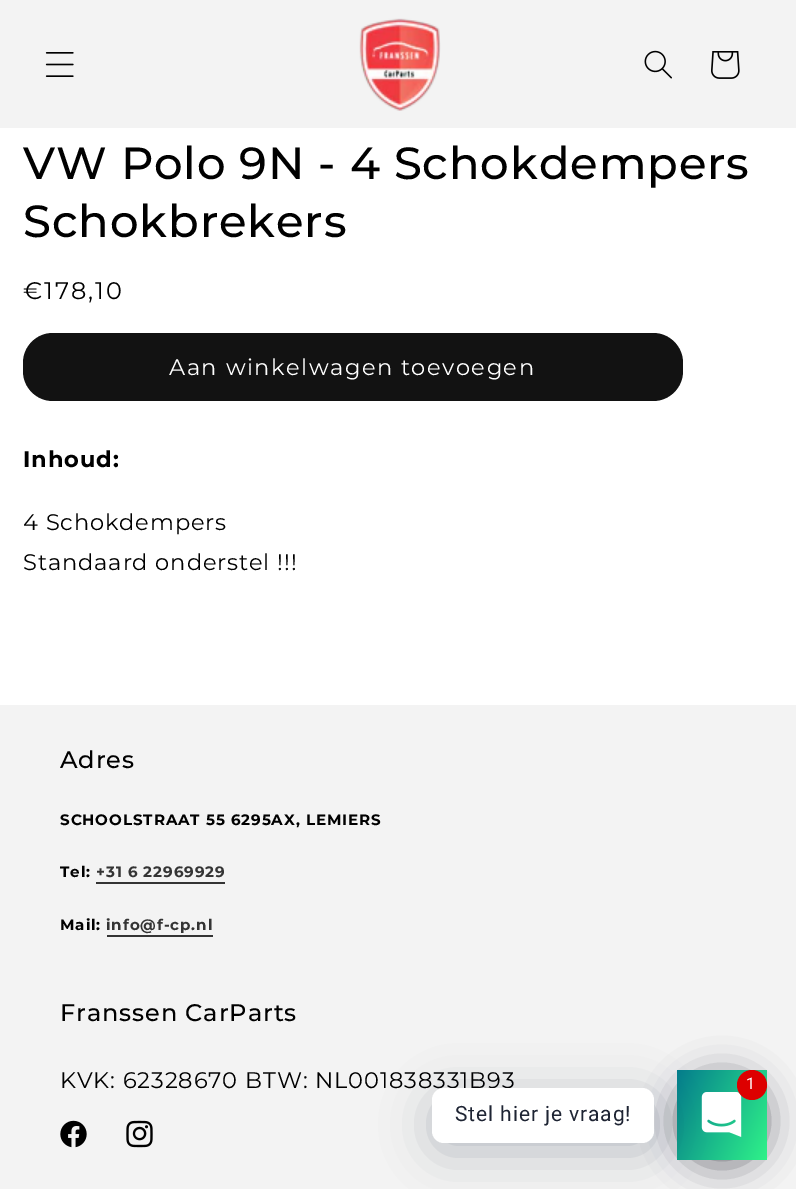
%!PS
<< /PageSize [796 1189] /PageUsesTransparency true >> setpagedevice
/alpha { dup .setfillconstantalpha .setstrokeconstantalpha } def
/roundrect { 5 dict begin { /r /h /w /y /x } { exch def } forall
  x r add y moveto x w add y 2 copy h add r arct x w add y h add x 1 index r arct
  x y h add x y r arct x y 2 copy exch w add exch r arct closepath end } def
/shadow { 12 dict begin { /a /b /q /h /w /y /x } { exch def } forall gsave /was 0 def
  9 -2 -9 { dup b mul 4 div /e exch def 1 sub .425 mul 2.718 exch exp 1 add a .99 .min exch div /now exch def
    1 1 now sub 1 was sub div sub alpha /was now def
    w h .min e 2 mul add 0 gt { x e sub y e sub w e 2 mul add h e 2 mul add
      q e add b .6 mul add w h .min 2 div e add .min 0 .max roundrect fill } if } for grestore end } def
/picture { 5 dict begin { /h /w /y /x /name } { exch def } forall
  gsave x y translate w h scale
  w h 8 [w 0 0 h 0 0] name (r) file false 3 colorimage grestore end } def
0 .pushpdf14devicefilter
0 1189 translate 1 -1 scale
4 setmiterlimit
1 setgray
0 0 796 1189 rectfill
0.953 setgray
0 0 796 128 rectfill
(img1.rgb) 45 52 29 25 picture
(img2.rgb) 359 18 82 93 picture
(img3.rgb) 644 50 28 29 picture
(img4.rgb) 711 51 29 28 picture
/Montserrat-Medium [45 0 0 -45 0 0] selectfont
0 setgray
23 179 moveto 0.9 0 (VW Polo 9N - 4 Schokdempers) ashow
23 237 moveto 0.9 0 (Schokbrekers) ashow
/Montserrat-Regular [24 0 0 -24 0 0] selectfont
23 299 moveto 2 0 (€178,10) ashow
0.071 setgray
23 333 660 68 30 roundrect fill
/Montserrat-Regular [22.5 0 0 -22.5 0 0] selectfont
1 setgray
169 375 moveto 1.5 0 (Aan winkelwagen toevoegen) ashow
/Montserrat-Bold [22.5 0 0 -22.5 0 0] selectfont
0 setgray
23 467 moveto 0.9 0 (Inhoud:) ashow
/Montserrat-Regular [22.5 0 0 -22.5 0 0] selectfont
23 530 moveto 0.9 0 (4 Schokdempers) ashow
23 570 moveto 0.9 0 (Standaard onderstel !!!) ashow
0.953 setgray
0 705 796 484 rectfill
/Montserrat-Medium [24 0 0 -24 0 0] selectfont
0 setgray
60 768 moveto 0.9 0 (Adres) ashow
/Montserrat-Bold [15.1 0 0 -15.1 0 0] selectfont
60 825 moveto 0.9 0 (SCHOOLSTRAAT 55 6295AX, LEMIERS) ashow
60 877 moveto 0.9 0 (Tel:) ashow
0.204 setgray
96 877 moveto 0.9 0 (+31 6 22969929) ashow
96 882 129 2 rectfill
0 setgray
60 930 moveto 0.9 0 (Mail:) ashow
0.204 setgray
106 930 moveto 0.9 0 (info@f-cp.nl) ashow
107 935 106 2 rectfill
/Montserrat-Medium [24 0 0 -24 0 0] selectfont
0 setgray
60 1021 moveto 0.9 0 (Franssen CarParts) ashow
/Montserrat-Regular [22.5 0 0 -22.5 0 0] selectfont
60 1088 moveto 0.9 0 (KVK: 62328670 BTW: NL001838331B93) ashow
(img5.rgb) 60 1120 27 28 picture
(img6.rgb) 126 1120 27 28 picture
0.008 0.024 0.063 setrgbcolor
677 1076 90 90 45 18 0.5 shadow
gsave newpath 677 1070 moveto 767 1070 lineto 767 1160 lineto 677 1160 lineto closepath clip newpath
<< /ShadingType 2 /ColorSpace /DeviceRGB /Coords [667 1089 776 1140] /Extend [true true] /Function << /FunctionType 2 /Domain [0 1] /C0 [0.016 0.486 0.553] /C1 [0.184 0.949 0.537] /N 1 >> >> shfill grestore
0 0.071 0.18 setrgbcolor
432 1097 222 55 12 24 0.24 shadow
(img7.rgb) 701 1092 41 45 picture
0.867 0 0 setrgbcolor
newpath 752 1085 15 0 360 arc closepath fill
/Roboto-Regular [16 0 0 -16 0 0] selectfont
1 setgray
746 1089 moveto 0.9 0 (1) ashow
432 1088 222 55 12 roundrect fill
/Roboto-Regular [21 0 0 -21 0 0] selectfont
0.118 0.141 0.2 setrgbcolor
455 1121 moveto 0.9 0 (Stel hier je vraag!) ashow
.poppdf14devicefilter showpage
